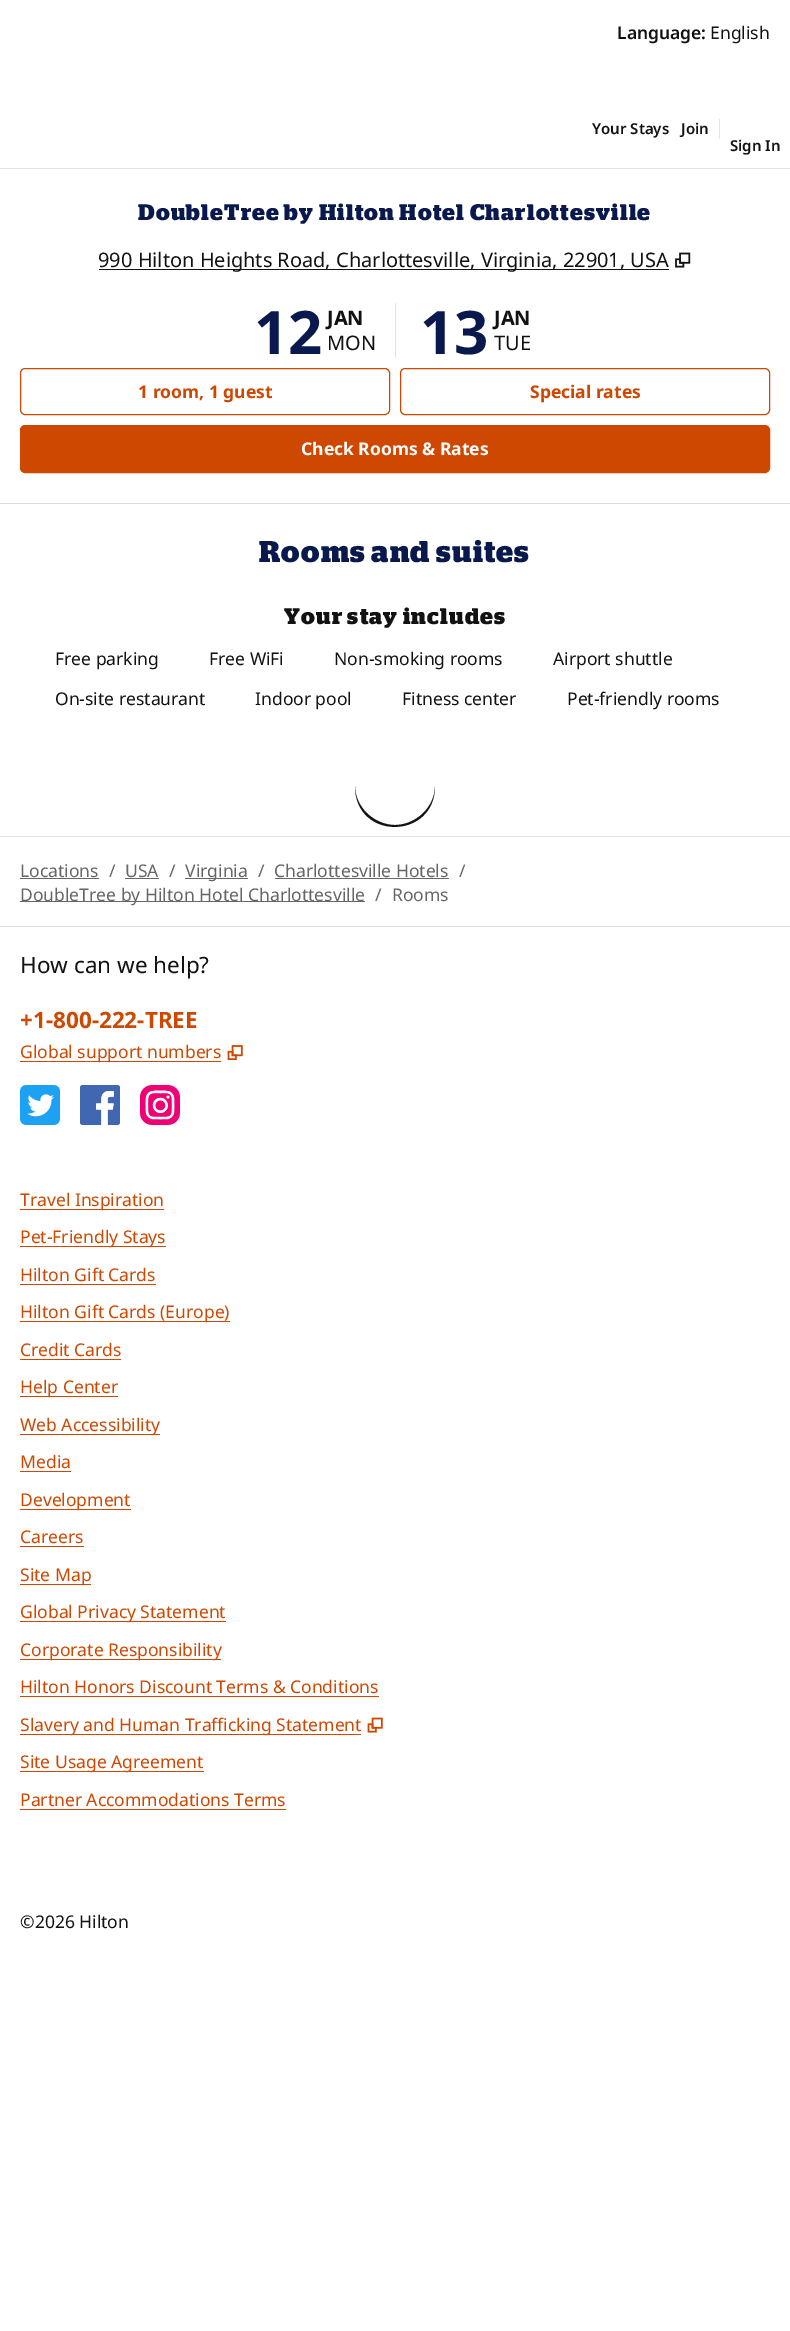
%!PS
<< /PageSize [790 2331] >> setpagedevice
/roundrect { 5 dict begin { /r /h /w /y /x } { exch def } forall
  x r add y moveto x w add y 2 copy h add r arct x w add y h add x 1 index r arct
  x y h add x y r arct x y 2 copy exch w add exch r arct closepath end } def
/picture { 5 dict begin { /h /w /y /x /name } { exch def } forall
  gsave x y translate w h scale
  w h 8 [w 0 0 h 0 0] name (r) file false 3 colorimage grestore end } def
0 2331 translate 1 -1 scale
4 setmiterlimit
1 setgray
0 0 790 2331 rectfill
0.89 setgray
0 168 790 1 rectfill
/NotoSans-SemiBold [17.5 0 0 -17.5 0 0] selectfont
0.071 setgray
617 39 moveto (Language:) show
/NotoSans-Regular [17.5 0 0 -17.5 0 0] selectfont
710 39 moveto (English) show
/NotoSans-SemiBold [15 0 0 -15 0 0] selectfont
592 134 moveto (Your Stays) show
0.89 setgray
719 119 1 20 rectfill
0.071 setgray
681 134 moveto (Join) show
730 151 moveto (Sign In) show
0.863 setgray
0 503 790 1 rectfill
/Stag-Bold [22.5 0 0 -22.5 0 0] selectfont
0.035 0.098 0.306 setrgbcolor
138 220 moveto 1.25 0 (DoubleTree by Hilton Hotel Charlottesville) ashow
0.071 setgray
99 269 570 1 rectfill
/NotoSans-Regular [20 0 0 -20 0 0] selectfont
98 267 moveto (990 Hilton Heights Road, Charlottesville, Virginia, 22901, USA) show
(img1.rgb) 675 252 16 16 picture
/NotoSans-Bold [60 0 0 -60 0 0] selectfont
0.035 0.098 0.306 setrgbcolor
254 354 moveto (12) show
/NotoSans-Bold [20 0 0 -20 0 0] selectfont
0.071 setgray
327 325 moveto (JAN) show
/NotoSans-Regular [20 0 0 -20 0 0] selectfont
327 350 moveto (MON) show
0.89 setgray
395 303 1 55 rectfill
/NotoSans-Bold [60 0 0 -60 0 0] selectfont
0.035 0.098 0.306 setrgbcolor
420 354 moveto (13) show
/NotoSans-Bold [20 0 0 -20 0 0] selectfont
0.071 setgray
494 325 moveto (JAN) show
/NotoSans-Regular [20 0 0 -20 0 0] selectfont
494 350 moveto (TUE) show
0.812 0.282 0.008 setrgbcolor
20.5 368.5 369 46 4.5 roundrect stroke
/NotoSans-Bold [17.5 0 0 -17.5 0 0] selectfont
138 398 moveto (1 room, 1 guest) show
400.5 368.5 369 46 4.5 roundrect stroke
530 398 moveto (Special rates) show
20.5 425.5 749 47 4.5 roundrect gsave fill grestore
stroke
1 setgray
301 455 moveto (Check Rooms & Rates) show
/Stag-Bold [30 0 0 -30 0 0] selectfont
0.035 0.098 0.306 setrgbcolor
259 562 moveto 1.25 0 (Rooms and suites) ashow
/Stag-Bold [22.5 0 0 -22.5 0 0] selectfont
0.071 setgray
284 624 moveto 1.25 0 (Your stay includes) ashow
/NotoSans-Regular [17.5 0 0 -17.5 0 0] selectfont
55 665 moveto (Free parking) show
209 665 moveto (Free WiFi) show
334 665 moveto (Non-smoking rooms) show
553 665 moveto (Airport shuttle) show
55 705 moveto (On-site restaurant) show
255 705 moveto (Indoor pool) show
402 705 moveto (Fitness center) show
567 705 moveto (Pet-friendly rooms) show
newpath 355 786 moveto 355 807 374 825 395 825 curveto 416 825 435 807 435 786 curveto 435 840 355 841 355 786 curveto closepath fill
0.89 setgray
0 836 790 1 rectfill
0.4 setgray
20 877 moveto (Locations) show
20 878 79 1 rectfill
109 877 moveto (/) show
125 877 moveto (USA) show
125 878 34 1 rectfill
169 877 moveto (/) show
185 878 63 1 rectfill
185 877 moveto (Virginia) show
258 877 moveto (/) show
274 877 moveto (Charlottesville Hotels) show
275 878 174 1 rectfill
459 877 moveto (/) show
20 901 345 1 rectfill
20 901 moveto (DoubleTree by Hilton Hotel Charlottesville) show
375 901 moveto (/) show
392 901 moveto (Rooms) show
0.89 setgray
0 926 790 1 rectfill
/NotoSans-Regular [22.5 0 0 -22.5 0 0] selectfont
0.071 setgray
20 973 moveto (How can we help?) show
/NotoSans-Bold [22.5 0 0 -22.5 0 0] selectfont
0.812 0.282 0.008 setrgbcolor
20 1028 moveto (+1-800-222-TREE) show
20 1061 201 1 rectfill
/NotoSans-Regular [17.5 0 0 -17.5 0 0] selectfont
20 1058 moveto (Global support numbers) show
(img2.rgb) 227 1045 16 16 picture
(img3.rgb) 20 1085 40 40 picture
(img4.rgb) 80 1085 40 40 picture
(img5.rgb) 140 1085 40 40 picture
20 1209 144 1 rectfill
20 1206 moveto (Travel Inspiration) show
20 1246 146 1 rectfill
20 1243 moveto (Pet-Friendly Stays) show
20 1281 moveto (Hilton Gift Cards) show
20 1284 136 1 rectfill
20 1321 210 1 rectfill
20 1318 moveto (Hilton Gift Cards \(Europe\)) show
20 1356 moveto (Credit Cards) show
20 1359 101 1 rectfill
20 1396 98 1 rectfill
20 1393 moveto (Help Center) show
20 1434 140 1 rectfill
20 1431 moveto (Web Accessibility) show
20 1468 moveto (Media) show
20 1471 51 1 rectfill
20 1509 111 1 rectfill
20 1506 moveto (Development) show
20 1543 moveto (Careers) show
20 1546 64 1 rectfill
20 1584 71 1 rectfill
20 1581 moveto (Site Map) show
20 1621 206 1 rectfill
20 1618 moveto (Global Privacy Statement) show
20 1659 201 1 rectfill
20 1656 moveto (Corporate Responsibility) show
20 1693 moveto (Hilton Honors Discount Terms & Conditions) show
20 1696 359 1 rectfill
20 1734 341 1 rectfill
20 1731 moveto (Slavery and Human Trafficking Statement) show
(img6.rgb) 367 1717 16 16 picture
20 1771 184 1 rectfill
20 1768 moveto (Site Usage Agreement) show
20 1806 moveto (Partner Accommodations Terms) show
20 1809 266 1 rectfill
0.071 setgray
20 1928 moveto (©2026 Hilton) show
showpage
